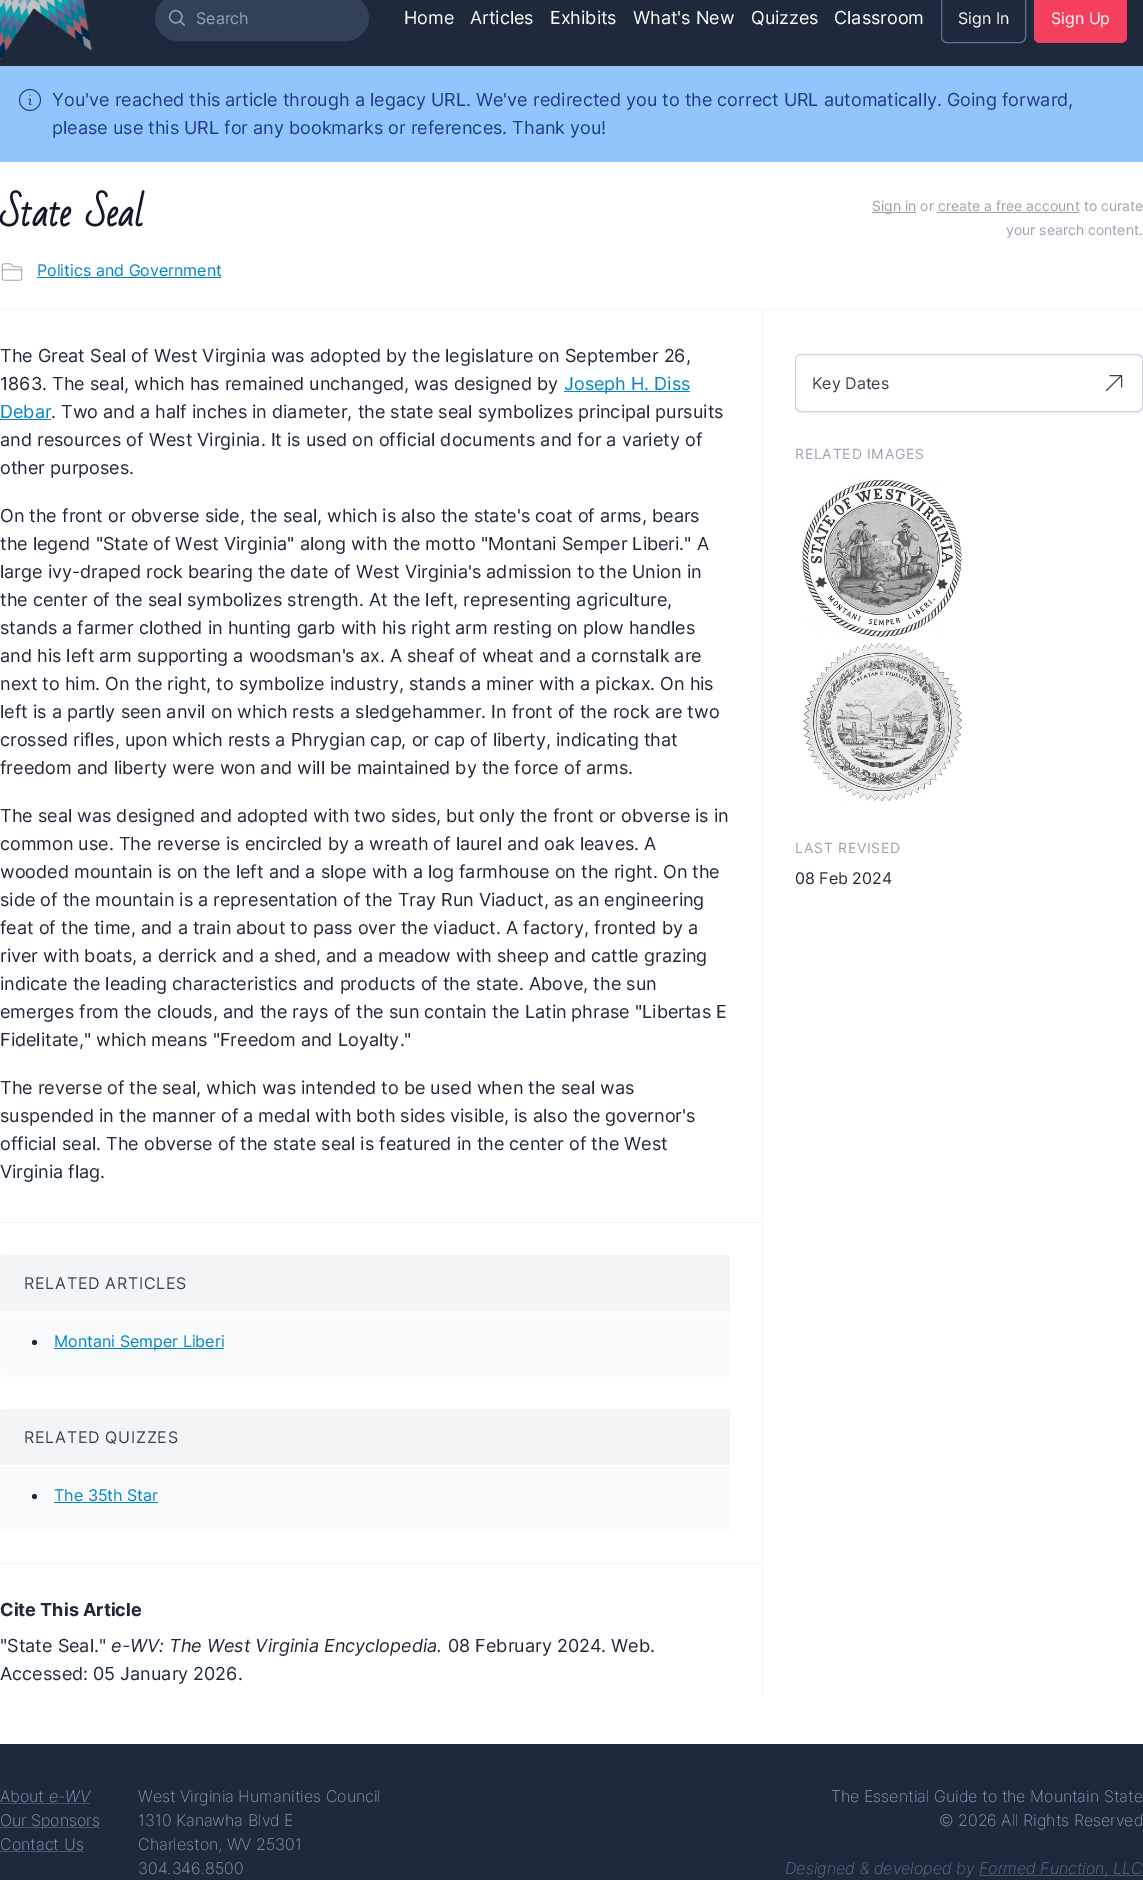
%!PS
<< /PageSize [1143 1880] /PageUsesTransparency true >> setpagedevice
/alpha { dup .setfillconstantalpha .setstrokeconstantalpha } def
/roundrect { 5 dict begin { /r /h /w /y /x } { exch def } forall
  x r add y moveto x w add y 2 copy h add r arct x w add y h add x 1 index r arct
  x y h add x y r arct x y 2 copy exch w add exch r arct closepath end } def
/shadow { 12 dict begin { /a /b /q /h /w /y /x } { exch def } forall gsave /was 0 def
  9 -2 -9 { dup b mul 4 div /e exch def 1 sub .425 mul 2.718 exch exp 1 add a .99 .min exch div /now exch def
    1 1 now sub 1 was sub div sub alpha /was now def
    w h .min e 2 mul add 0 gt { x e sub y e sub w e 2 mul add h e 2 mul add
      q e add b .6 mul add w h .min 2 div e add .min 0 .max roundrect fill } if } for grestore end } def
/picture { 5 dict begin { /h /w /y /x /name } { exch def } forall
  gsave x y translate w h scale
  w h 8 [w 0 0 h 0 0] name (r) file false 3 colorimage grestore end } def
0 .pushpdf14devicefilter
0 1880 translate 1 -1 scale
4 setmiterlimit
0.118 0.161 0.231 setrgbcolor
0 0 1143 1880 rectfill
(img1.rgb) 0 0 92 60 picture
0.2 0.255 0.333 setrgbcolor
155.5 -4.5 213 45 22.5 roundrect gsave fill grestore
stroke
0.58 0.639 0.722 setrgbcolor
1.2 setlinewidth
1 setlinecap
1 setlinejoin
newpath 184.5 25.5 moveto 180 21 lineto 180 21 moveto 186 15.5 177 6.5 171.5 12.5 curveto 165.5 18 174.5 27 180 21 curveto closepath stroke
/Inter-Regular [16 0 0 -16 0 0] selectfont
196 24 moveto (Search) show
/Inter-Regular [18 0 0 -18 0 0] selectfont
1 setgray
404 24 moveto (Home) show
470 24 moveto (Articles) show
550 24 moveto (Exhibits) show
633 24 moveto (What's New) show
751 24 moveto (Quizzes) show
834 24 moveto (Classroom) show
0.392 0.455 0.545 setrgbcolor
1 setlinewidth
0 setlinecap
0 setlinejoin
941.5 -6.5 84 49 5.5 roundrect stroke
/Inter-Regular [16 0 0 -16 0 0] selectfont
1 setgray
958 24 moveto (Sign In) show
0.957 0.247 0.369 setrgbcolor
1034 -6 93 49 6 roundrect fill
1 setgray
1051 24 moveto (Sign Up) show
0.576 0.773 0.992 setrgbcolor
0 66 1143 96 rectfill
(img2.rgb) 18 88 24 24 picture
/Inter-Regular [18 0 0 -18 0 0] selectfont
0.118 0.227 0.541 setrgbcolor
52 106 moveto (You've reached this article through a legacy URL. We've redirected you to the correct URL automatically. Going forward,) show
52 134 moveto (please use this URL for any bookmarks or references. Thank you!) show
1 setgray
0 162 1143 1582 rectfill
0.976 0.98 0.984 setrgbcolor
0 308 1143 2 rectfill
/BadScript-Bold [36 0 0 -36 0 0] selectfont
0.067 0.094 0.153 setrgbcolor
0 226 moveto (State Seal) show
(img3.rgb) 1 263 22 18 picture
/Inter-Regular [16 0 0 -16 0 0] selectfont
0.008 0.518 0.78 setrgbcolor
37 276 moveto (Politics and Government) show
37 277 184 1 rectfill
0.612 0.639 0.686 setrgbcolor
872 212 44 1 rectfill
/Inter-Regular [14 0 0 -14 0 0] selectfont
872 211 moveto (Sign in or create a free account to curate) show
937 212 142 1 rectfill
1006 235 moveto (your search content.) show
0.953 0.957 0.965 setrgbcolor
0 1222 762 1 rectfill
/Inter-Regular [18 0 0 -18 0 0] selectfont
0.122 0.161 0.216 setrgbcolor
0 362 moveto (The Great Seal of West Virginia was adopted by the legislature on September 26,) show
0 390 moveto (1863. The seal, which has remained unchanged, was designed by) show
0.008 0.518 0.78 setrgbcolor
564 391 126 1 rectfill
564 390 moveto (Joseph H. Diss) show
0 418 moveto (Debar) show
0 419 51 1 rectfill
0.122 0.161 0.216 setrgbcolor
51 418 moveto (. Two and a half inches in diameter, the state seal symbolizes principal pursuits) show
0 446 moveto (and resources of West Virginia. It is used on official documents and for a variety of) show
0 474 moveto (other purposes.) show
0 522 moveto (On the front or obverse side, the seal, which is also the state's coat of arms, bears) show
0 550 moveto (the legend "State of West Virginia" along with the motto "Montani Semper Liberi." A) show
0 578 moveto (large ivy-draped rock bearing the date of West Virginia's admission to the Union in) show
0 606 moveto (the center of the seal symbolizes strength. At the left, representing agriculture,) show
0 634 moveto (stands a farmer clothed in hunting garb with his right arm resting on plow handles) show
0 662 moveto (and his left arm supporting a woodsman's ax. A sheaf of wheat and a cornstalk are) show
0 690 moveto (next to him. On the right, to symbolize industry, stands a miner with a pickax. On his) show
0 718 moveto (left is a partly seen anvil on which rests a sledgehammer. In front of the rock are two) show
0 746 moveto (crossed rifles, upon which rests a Phrygian cap, or cap of liberty, indicating that) show
0 774 moveto (freedom and liberty were won and will be maintained by the force of arms.) show
0 822 moveto (The seal was designed and adopted with two sides, but only the front or obverse is in) show
0 850 moveto (common use. The reverse is encircled by a wreath of laurel and oak leaves. A) show
0 878 moveto (wooded mountain is on the left and a slope with a log farmhouse on the right. On the) show
0 906 moveto (side of the mountain is a representation of the Tray Run Viaduct, as an engineering) show
0 934 moveto (feat of the time, and a train about to pass over the viaduct. A factory, fronted by a) show
0 962 moveto (river with boats, a derrick and a shed, and a meadow with sheep and cattle grazing) show
0 990 moveto (indicate the leading characteristics and products of the state. Above, the sun) show
0 1018 moveto (emerges from the clouds, and the rays of the sun contain the Latin phrase "Libertas E) show
0 1046 moveto (Fidelitate," which means "Freedom and Loyalty.") show
0 1094 moveto (The reverse of the seal, which was intended to be used when the seal was) show
0 1122 moveto (suspended in the manner of a medal with both sides visible, is also the governor's) show
0 1150 moveto (official seal. The obverse of the state seal is featured in the center of the West) show
0 1178 moveto (Virginia flag.) show
0.976 0.98 0.984 setrgbcolor
0 1255 730 122 4 roundrect fill
0.953 0.957 0.965 setrgbcolor
newpath 4 1255 moveto 726 1255 lineto 728 1255 730 1257 730 1259 curveto 730 1311 lineto 0 1311 lineto 0 1259 lineto 0 1257 2 1255 4 1255 curveto closepath fill
1 setgray
0 1311 730 2 rectfill
/Inter-Regular [16 0 0 -16 0 0] selectfont
0.216 0.255 0.318 setrgbcolor
24 1289 moveto 0.75 0 (RELATED ARTICLES) ashow
0.122 0.161 0.216 setrgbcolor
newpath 34.5 1342.5 2.5 0 360 arc closepath fill
0.008 0.518 0.78 setrgbcolor
54 1348 170 1 rectfill
54 1347 moveto (Montani Semper Liberi) show
0.976 0.98 0.984 setrgbcolor
0 1409 730 122 4 roundrect fill
0.953 0.957 0.965 setrgbcolor
newpath 4 1409 moveto 726 1409 lineto 728 1409 730 1411 730 1413 curveto 730 1465 lineto 0 1465 lineto 0 1413 lineto 0 1411 2 1409 4 1409 curveto closepath fill
1 setgray
0 1465 730 2 rectfill
0.216 0.255 0.318 setrgbcolor
24 1443 moveto 0.75 0 (RELATED QUIZZES) ashow
0.122 0.161 0.216 setrgbcolor
newpath 34.5 1496.5 2.5 0 360 arc closepath fill
0.008 0.518 0.78 setrgbcolor
54 1501 moveto (The 35th Star) show
54 1502 104 1 rectfill
0.953 0.957 0.965 setrgbcolor
0 1563 762 1 rectfill
/Inter-Bold [18 0 0 -18 0 0] selectfont
0.122 0.161 0.216 setrgbcolor
0 1616 moveto (Cite This Article) show
/Inter-Regular [18 0 0 -18 0 0] selectfont
0 1652 moveto ("State Seal.") show
/Inter-Italic [18 0 0 -18 0 0] selectfont
111 1652 moveto (e-WV: The West Virginia Encyclopedia.) show
/Inter-Regular [18 0 0 -18 0 0] selectfont
448 1652 moveto (08 February 2024. Web.) show
0 1680 moveto (Accessed: 05 January 2026.) show
0.953 0.957 0.965 setrgbcolor
762 310 1 1386 rectfill
0 setgray
795 355 348 58 6 1 0.05 shadow
1 setgray
795.5 354.5 347 57 5.5 roundrect gsave fill grestore
0.82 0.835 0.859 setrgbcolor
stroke
/Inter-Regular [16 0 0 -16 0 0] selectfont
0.216 0.255 0.318 setrgbcolor
812 389 moveto (Key Dates) show
1 setlinecap
1 setlinejoin
newpath 1106.5 390.5 moveto 1121.5 375.5 lineto 1121.5 375.5 moveto 1110 375.5 lineto 1121.5 375.5 moveto 1121.5 387 lineto stroke
/Inter-Regular [14 0 0 -14 0 0] selectfont
0.612 0.639 0.686 setrgbcolor
795 459 moveto 0.75 0 (RELATED IMAGES) ashow
(img4.rgb) 801 477 161 325 picture
795 853 moveto 0.75 0 (LAST REVISED) ashow
/Inter-Regular [16 0 0 -16 0 0] selectfont
0.122 0.161 0.216 setrgbcolor
795 884 moveto (08 Feb 2024) show
/Inter-ExtraLight [16 0 0 -16 0 0] selectfont
0.58 0.639 0.722 setrgbcolor
0 1802 moveto (About) show
0.278 0.333 0.412 setrgbcolor
0 1803 90 1 rectfill
/Inter-ExtraLightItalic [16 0 0 -16 0 0] selectfont
0.58 0.639 0.722 setrgbcolor
49 1802 moveto (e-WV) show
0.278 0.333 0.412 setrgbcolor
0 1827 100 1 rectfill
/Inter-ExtraLight [16 0 0 -16 0 0] selectfont
0.58 0.639 0.722 setrgbcolor
0 1826 moveto (Our Sponsors) show
0 1850 moveto (Contact Us) show
0.278 0.333 0.412 setrgbcolor
0 1851 84 1 rectfill
0.58 0.639 0.722 setrgbcolor
138 1802 moveto (West Virginia Humanities Council) show
138 1826 moveto (1310 Kanawha Blvd E) show
138 1850 moveto (Charleston, WV 25301) show
138 1874 moveto (304.346.8500) show
831 1802 moveto (The Essential Guide to the Mountain State) show
939 1826 moveto (© 2026 All Rights Reserved) show
/Inter-ExtraLightItalic [16 0 0 -16 0 0] selectfont
0.392 0.455 0.545 setrgbcolor
785 1874 moveto (Designed & developed by) show
0.278 0.333 0.412 setrgbcolor
979 1875 164 1 rectfill
0.392 0.455 0.545 setrgbcolor
979 1874 moveto (Formed Function, LLC) show
.poppdf14devicefilter showpage
